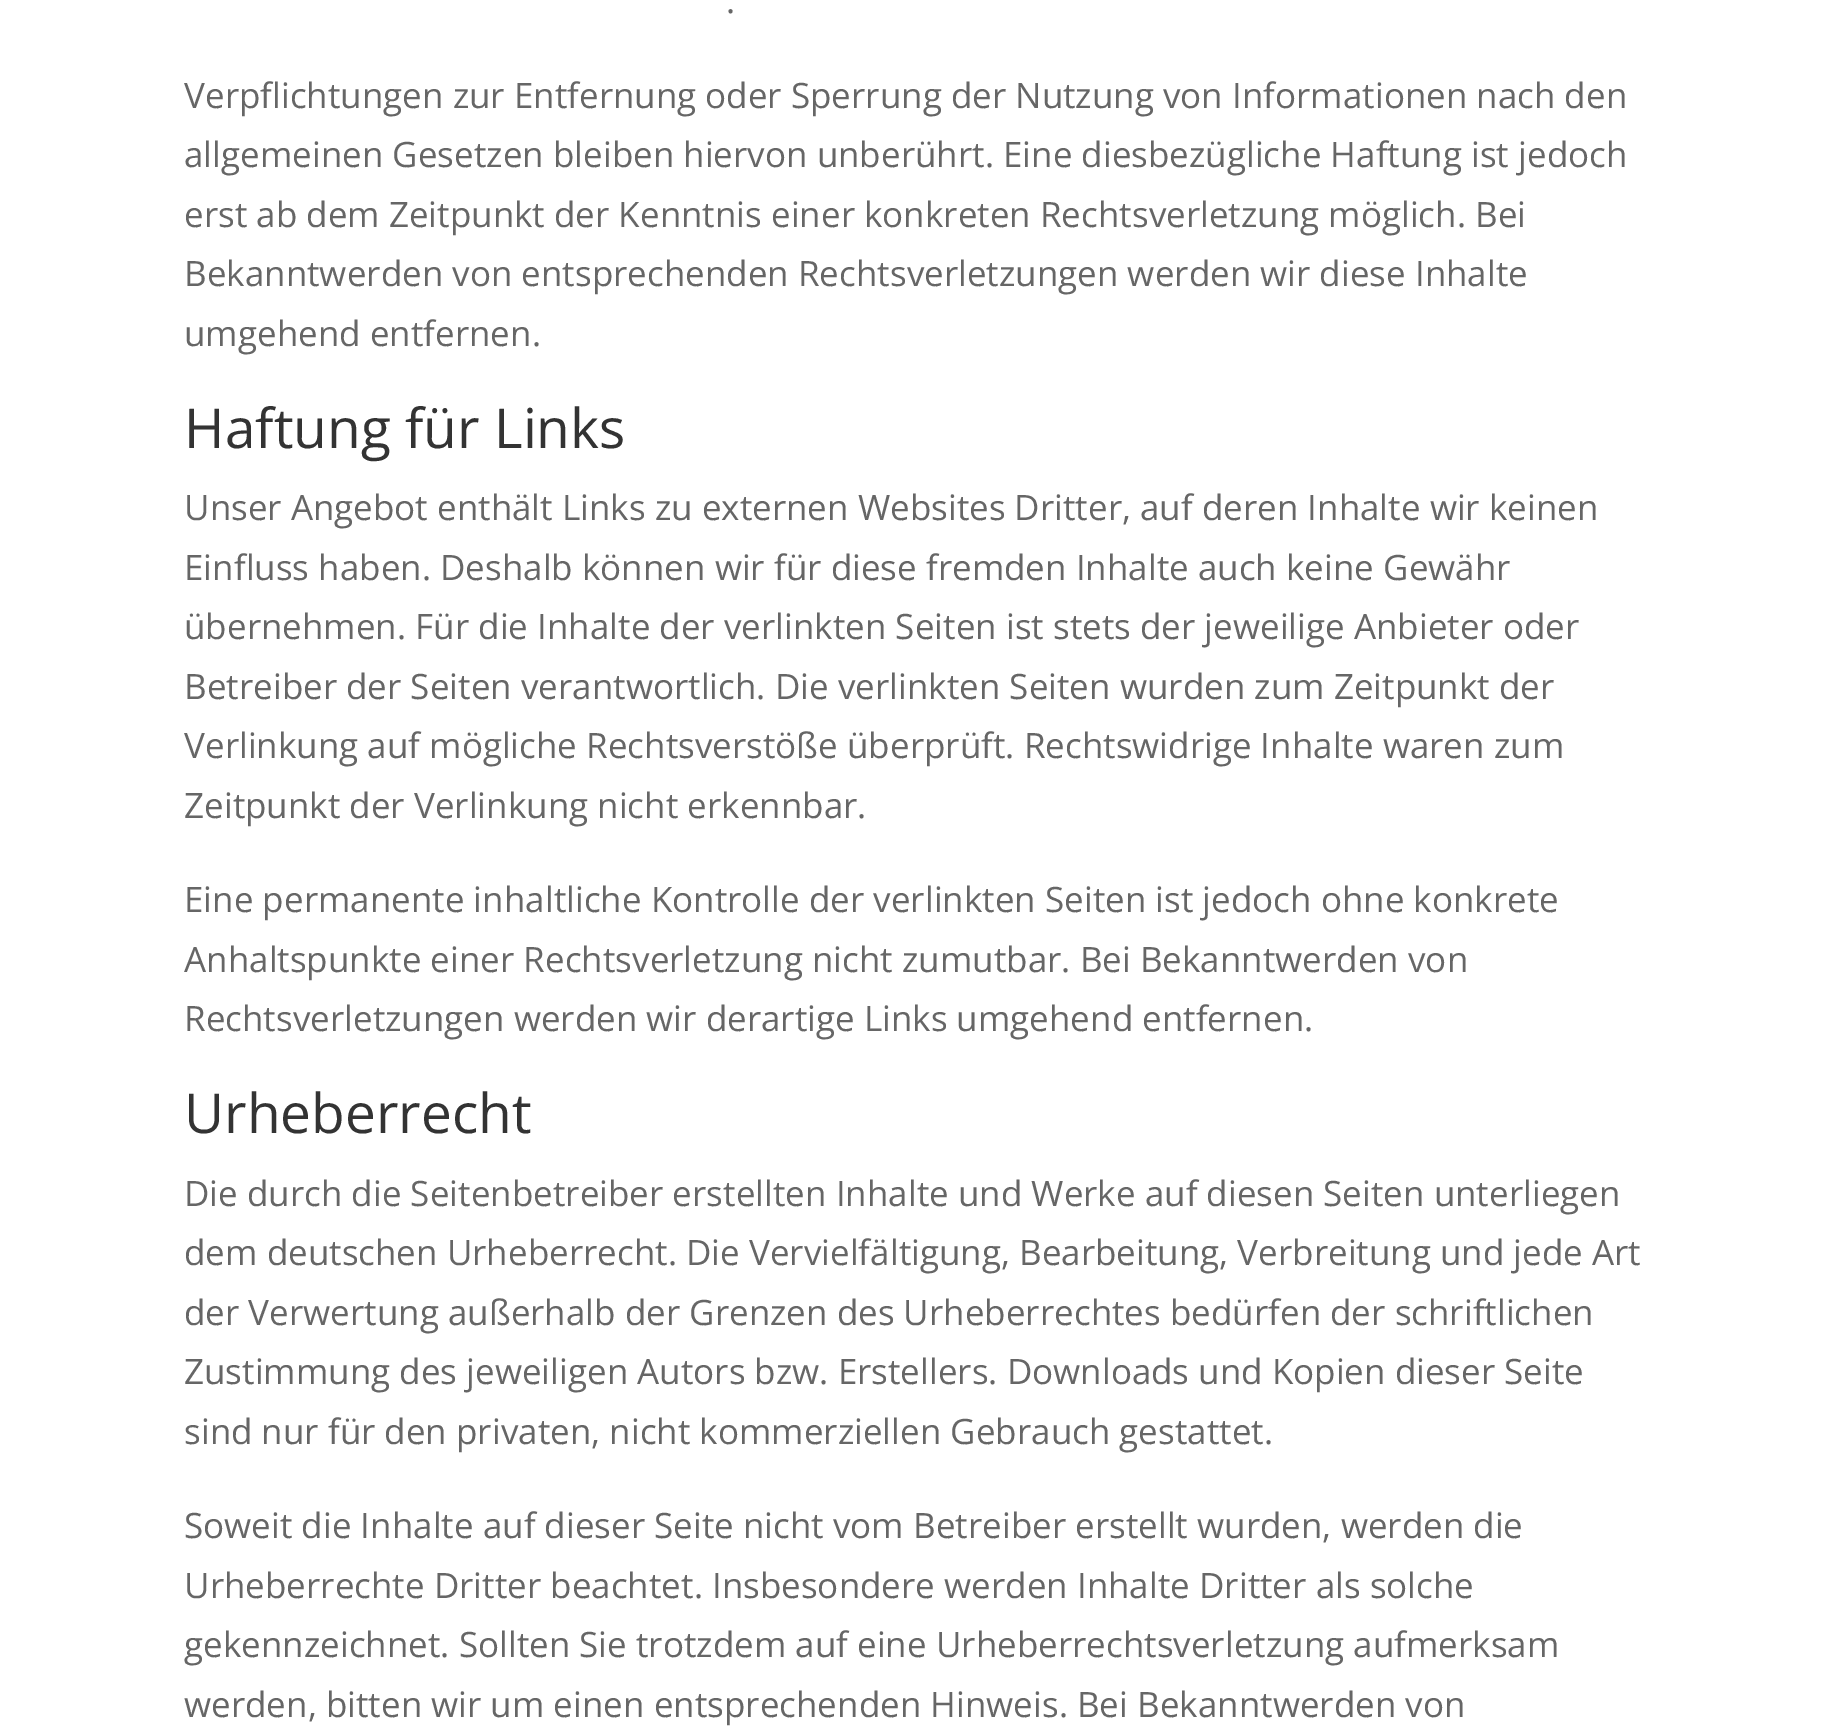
%!PS
<< /PageSize [1836 1733] >> setpagedevice
0 1733 translate 1 -1 scale
4 setmiterlimit
1 setgray
0 0 1836 1733 rectfill
/OpenSans-Regular [35 0 0 -35 0 0] selectfont
0.4 setgray
726 13 moveto (.) show
184 108 moveto (Verpflichtungen zur Entfernung oder Sperrung der Nutzung von Informationen nach den) show
184 167 moveto (allgemeinen Gesetzen bleiben hiervon unberührt. Eine diesbezügliche Haftung ist jedoch) show
184 227 moveto (erst ab dem Zeitpunkt der Kenntnis einer konkreten Rechtsverletzung möglich. Bei) show
184 286 moveto (Bekanntwerden von entsprechenden Rechtsverletzungen werden wir diese Inhalte) show
184 346 moveto (umgehend entfernen.) show
/OpenSans-Regular [55 0 0 -55 0 0] selectfont
0.2 setgray
184 448 moveto (Haftung für Links) show
/OpenSans-Regular [35 0 0 -35 0 0] selectfont
0.4 setgray
184 520 moveto (Unser Angebot enthält Links zu externen Websites Dritter, auf deren Inhalte wir keinen) show
184 580 moveto (Einfluss haben. Deshalb können wir für diese fremden Inhalte auch keine Gewähr) show
184 639 moveto (übernehmen. Für die Inhalte der verlinkten Seiten ist stets der jeweilige Anbieter oder) show
184 699 moveto (Betreiber der Seiten verantwortlich. Die verlinkten Seiten wurden zum Zeitpunkt der) show
184 758 moveto (Verlinkung auf mögliche Rechtsverstöße überprüft. Rechtswidrige Inhalte waren zum) show
184 818 moveto (Zeitpunkt der Verlinkung nicht erkennbar.) show
184 912 moveto (Eine permanente inhaltliche Kontrolle der verlinkten Seiten ist jedoch ohne konkrete) show
184 972 moveto (Anhaltspunkte einer Rechtsverletzung nicht zumutbar. Bei Bekanntwerden von) show
184 1031 moveto (Rechtsverletzungen werden wir derartige Links umgehend entfernen.) show
/OpenSans-Regular [55 0 0 -55 0 0] selectfont
0.2 setgray
184 1133 moveto (Urheberrecht) show
/OpenSans-Regular [35 0 0 -35 0 0] selectfont
0.4 setgray
184 1206 moveto (Die durch die Seitenbetreiber erstellten Inhalte und Werke auf diesen Seiten unterliegen) show
184 1265 moveto (dem deutschen Urheberrecht. Die Vervielfältigung, Bearbeitung, Verbreitung und jede Art) show
184 1325 moveto (der Verwertung außerhalb der Grenzen des Urheberrechtes bedürfen der schriftlichen) show
184 1384 moveto (Zustimmung des jeweiligen Autors bzw. Erstellers. Downloads und Kopien dieser Seite) show
184 1444 moveto (sind nur für den privaten, nicht kommerziellen Gebrauch gestattet.) show
184 1538 moveto (Soweit die Inhalte auf dieser Seite nicht vom Betreiber erstellt wurden, werden die) show
184 1598 moveto (Urheberrechte Dritter beachtet. Insbesondere werden Inhalte Dritter als solche) show
184 1657 moveto (gekennzeichnet. Sollten Sie trotzdem auf eine Urheberrechtsverletzung aufmerksam) show
184 1717 moveto (werden, bitten wir um einen entsprechenden Hinweis. Bei Bekanntwerden von) show
showpage
